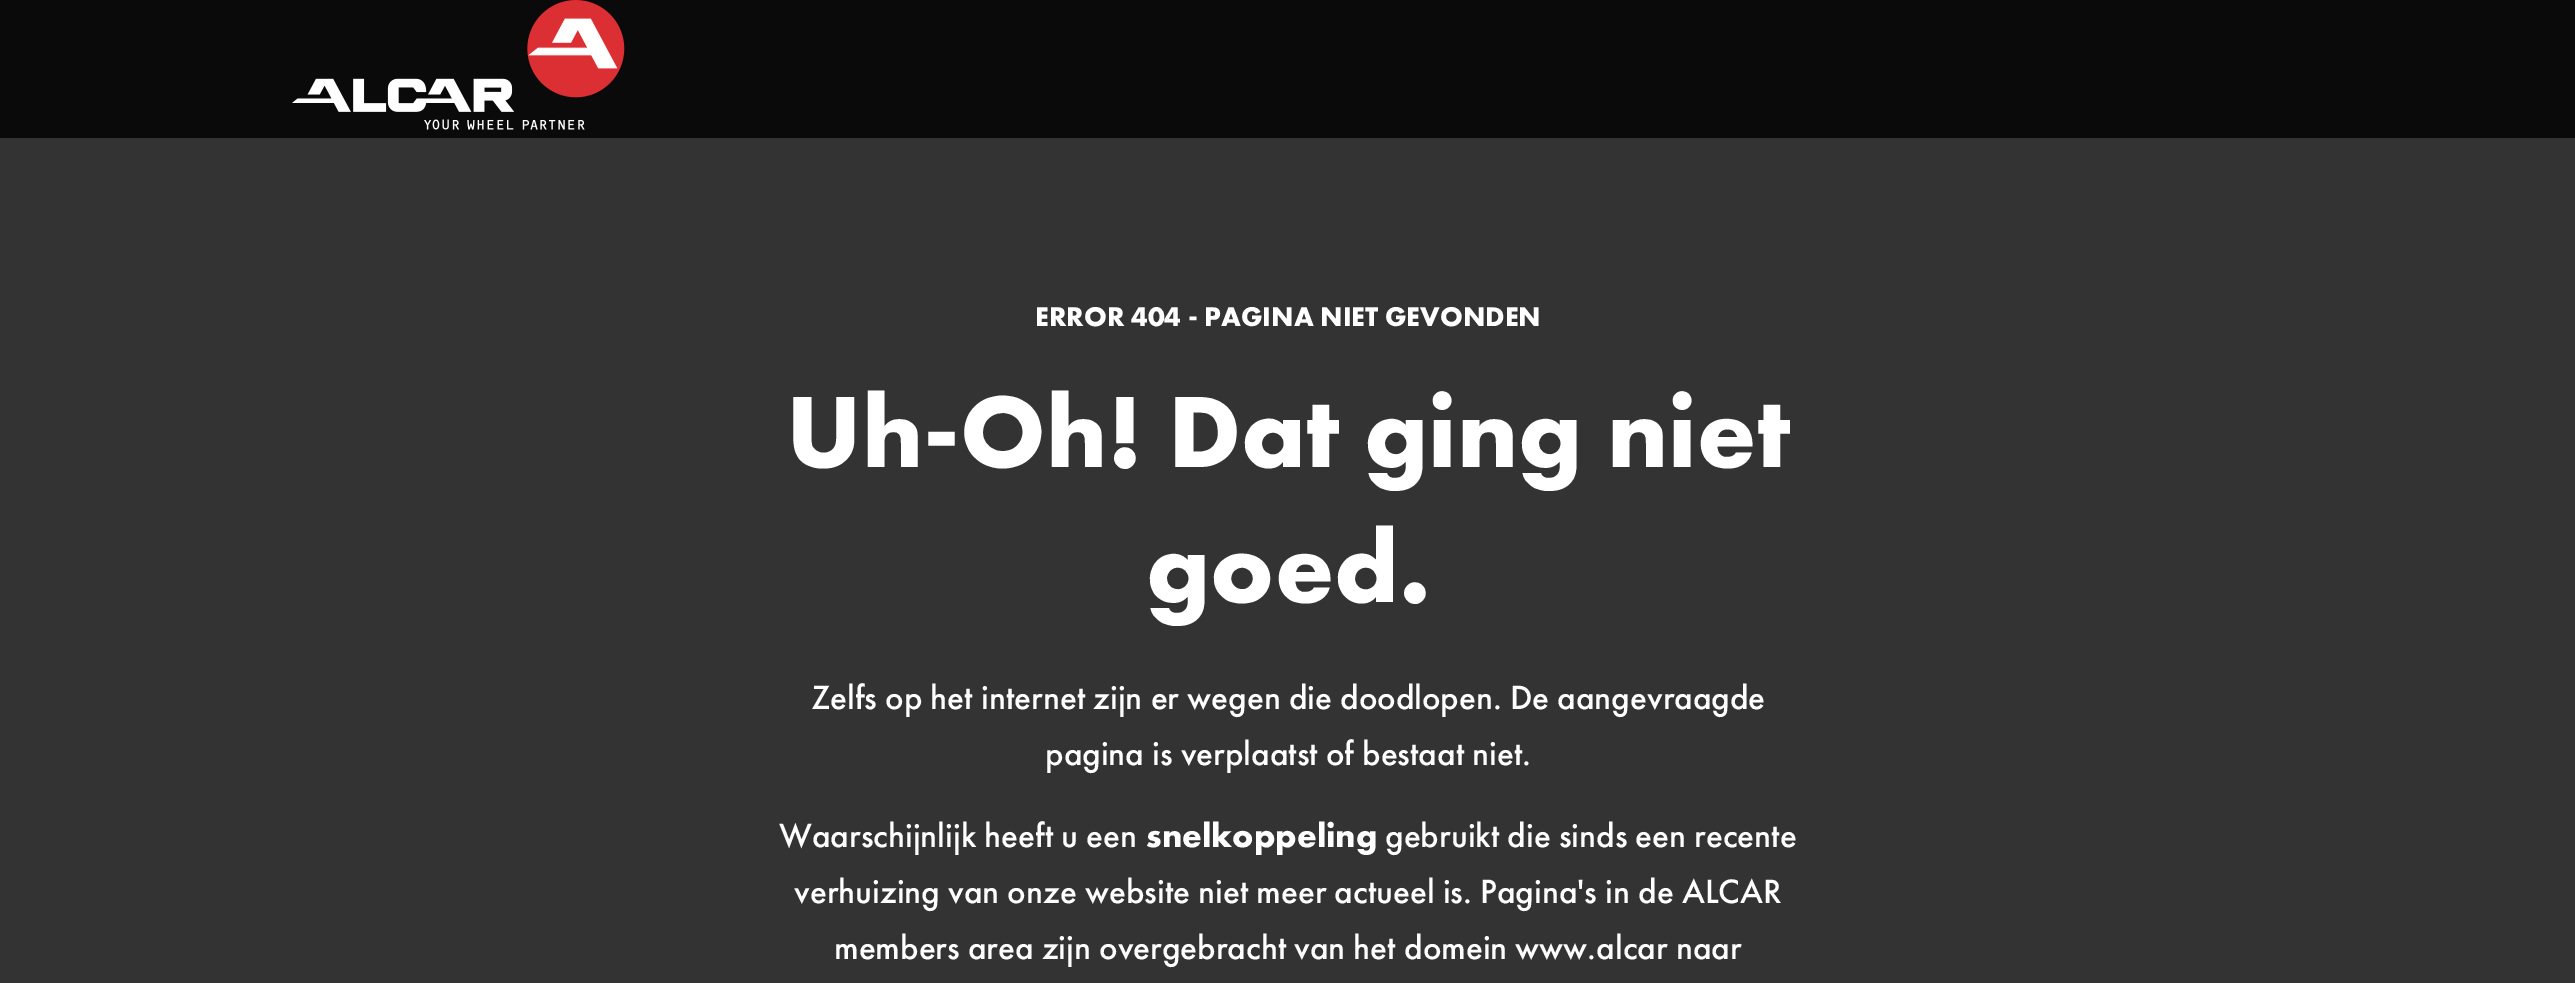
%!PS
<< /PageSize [2575 983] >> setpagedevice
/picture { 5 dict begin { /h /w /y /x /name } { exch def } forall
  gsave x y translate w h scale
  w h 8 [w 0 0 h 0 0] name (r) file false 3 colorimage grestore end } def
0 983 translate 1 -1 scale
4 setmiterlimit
0.2 setgray
0 0 2575 983 rectfill
0.039 setgray
0 0 2575 138 rectfill
(img1.rgb) 292 0 333 130 picture
/Futura-Bold [28 0 0 -28 0 0] selectfont
1 setgray
1035 326 moveto (ERROR 404 - PAGINA NIET GEVONDEN) show
/Futura-Bold [105 0 0 -105 0 0] selectfont
786 467 moveto (Uh-Oh! Dat ging niet) show
1146 602 moveto (goed.) show
/FuturaPT-Medium [35 0 0 -35 0 0] selectfont
811 709 moveto (Zelfs op het internet zijn er wegen die doodlopen. De aangevraagde) show
1045 765 moveto (pagina is verplaatst of bestaat niet.) show
779 847 moveto (Waarschijnlijk heeft u een) show
/Futura-Bold [35 0 0 -35 0 0] selectfont
1146 847 moveto (snelkoppeling) show
/FuturaPT-Medium [35 0 0 -35 0 0] selectfont
1385 847 moveto (gebruikt die sinds een recente) show
794 903 moveto (verhuizing van onze website niet meer actueel is. Pagina's in de ALCAR) show
834 959 moveto (members area zijn overgebracht van het domein www.alcar naar) show
showpage
